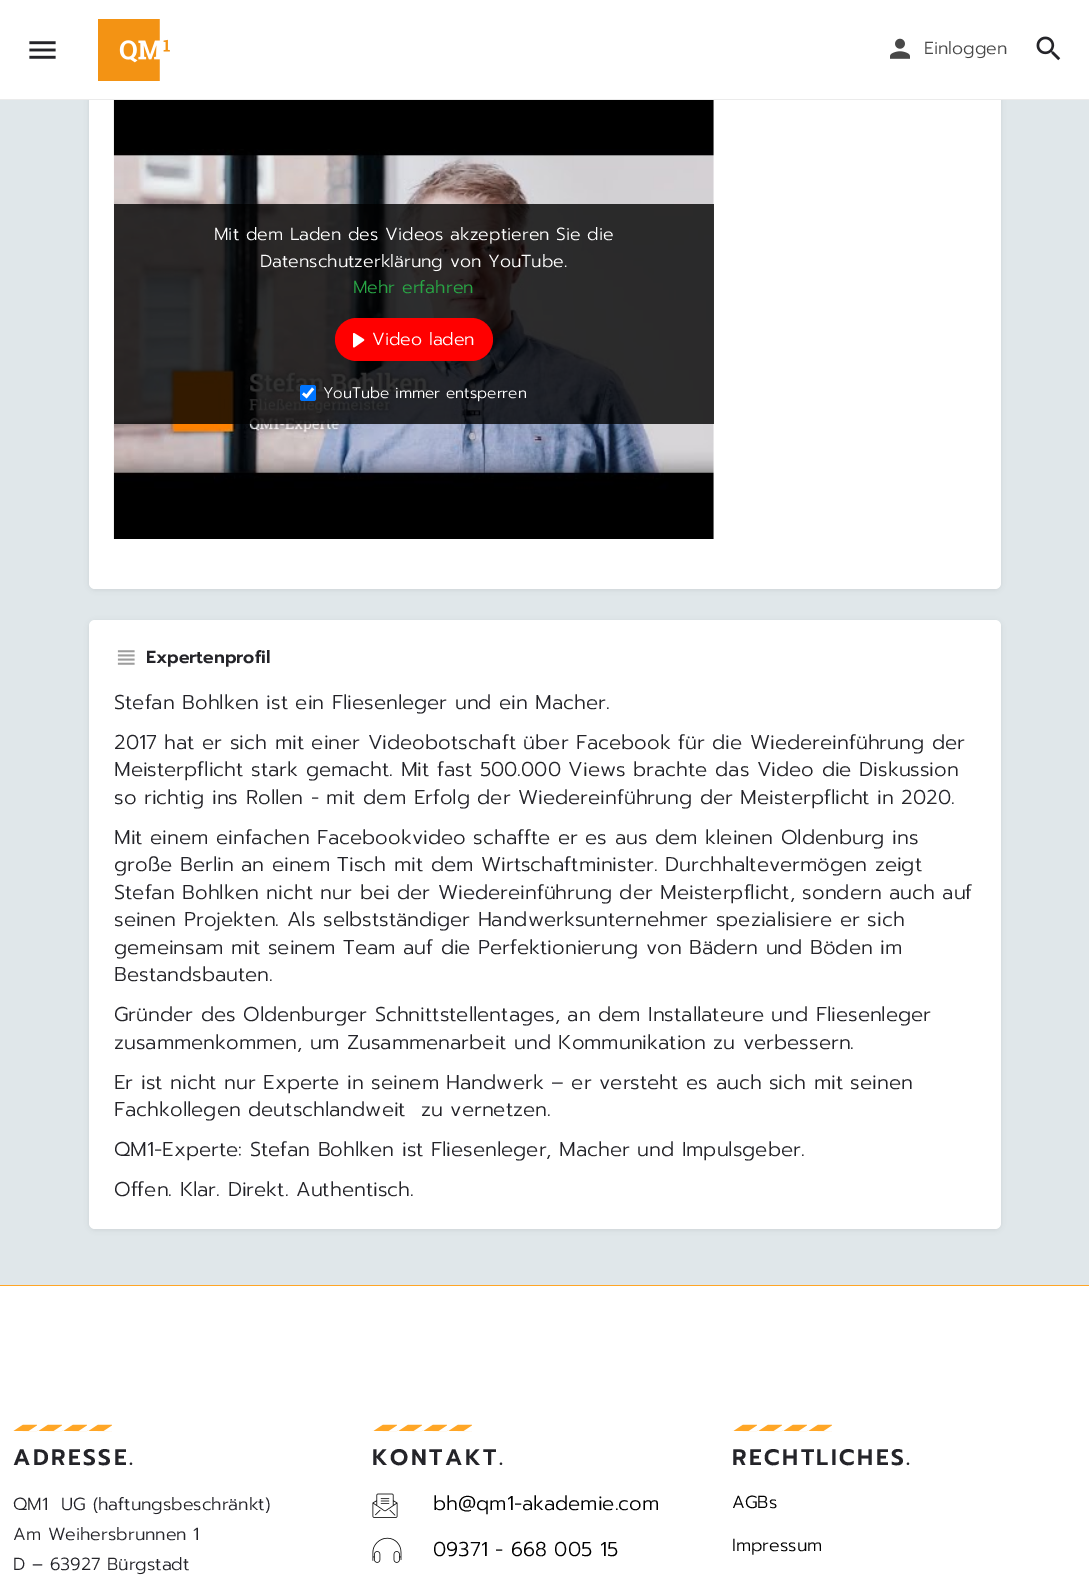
%!PS
<< /PageSize [1089 1583] /PageUsesTransparency true >> setpagedevice
/alpha { dup .setfillconstantalpha .setstrokeconstantalpha } def
/roundrect { 5 dict begin { /r /h /w /y /x } { exch def } forall
  x r add y moveto x w add y 2 copy h add r arct x w add y h add x 1 index r arct
  x y h add x y r arct x y 2 copy exch w add exch r arct closepath end } def
/shadow { 12 dict begin { /a /b /q /h /w /y /x } { exch def } forall gsave /was 0 def
  9 -2 -9 { dup b mul 4 div /e exch def 1 sub .425 mul 2.718 exch exp 1 add a .99 .min exch div /now exch def
    1 1 now sub 1 was sub div sub alpha /was now def
    w h .min e 2 mul add 0 gt { x e sub y e sub w e 2 mul add h e 2 mul add
      q e add b .6 mul add w h .min 2 div e add .min 0 .max roundrect fill } if } for grestore end } def
/picture { 5 dict begin { /h /w /y /x /name } { exch def } forall
  gsave x y translate w h scale
  w h 8 [w 0 0 h 0 0] name (r) file false 3 colorimage grestore end } def
0 .pushpdf14devicefilter
0 1583 translate 1 -1 scale
4 setmiterlimit
0.878 0.906 0.918 setrgbcolor
0 0 1089 1583 rectfill
0 setgray
89 21 912 569 6 2.5 0.07 shadow
1 setgray
89 20 912 569 6 roundrect fill
0 0 1089 99 rectfill
0.922 setgray
0 99 1089 1 rectfill
(img1.rgb) 29 41 27 18 picture
(img2.rgb) 98 19 72 62 picture
(img3.rgb) 890 38 20 21 picture
/Prompt-Light [17.5 0 0 -17.5 0 0] selectfont
0.282 setgray
924 54 moveto (Einloggen) show
(img4.rgb) 1036 36 25 25 picture
(img5.rgb) 113 100 601 439 picture
0.8 alpha
0 setgray
114 204 600 220 rectfill
1 alpha
1 setgray
214 240 moveto (Mit dem Laden des Videos akzeptieren Sie die) show
260 267 moveto (Datenschutzerklärung von YouTube.) show
0.157 0.655 0.271 setrgbcolor
353 293 moveto (Mehr erfahren) show
1 0 0 setrgbcolor
335 318 158 43 21.5 roundrect fill
(img6.rgb) 353 333 12 15 picture
1 setgray
372 345 moveto (Video laden) show
0 0.459 1 setrgbcolor
300 385 16 16 2.5 roundrect fill
1 setgray
2.6 setlinewidth
newpath 303 393.5 moveto 306.5 396.5 lineto 313 388.5 lineto stroke
/Prompt-Light [15.25 0 0 -15.25 0 0] selectfont
323 398 moveto (YouTube immer entsperren) show
0 setgray
89 621 912 609 6 2.5 0.07 shadow
1 setgray
89 620 912 609 6 roundrect fill
(img7.rgb) 117 650 18 15 picture
/Prompt-SemiBold [17.5 0 0 -17.5 0 0] selectfont
0.141 0.141 0.161 setrgbcolor
146 663 moveto (Expertenprofil) show
/Prompt-Light [20 0 0 -20 0 0] selectfont
114 709 moveto (Stefan Bohlken ist ein Fliesenleger und ein Macher.) show
114 749 moveto (2017 hat er sich mit einer Videobotschaft über Facebook für die Wiedereinführung der) show
114 776 moveto (Meisterpflicht stark gemacht. Mit fast 500.000 Views brachte das Video die Diskussion) show
114 804 moveto (so richtig ins Rollen - mit dem Erfolg der Wiedereinführung der Meisterpflicht in 2020.) show
114 844 moveto (Mit einem einfachen Facebookvideo schaffte er es aus dem kleinen Oldenburg ins) show
114 871 moveto (große Berlin an einem Tisch mit dem Wirtschaftminister. Durchhaltevermögen zeigt) show
114 899 moveto (Stefan Bohlken nicht nur bei der Wiedereinführung der Meisterpflicht, sondern auch auf) show
114 926 moveto (seinen Projekten. Als selbstständiger Handwerksunternehmer spezialisiere er sich) show
114 954 moveto (gemeinsam mit seinem Team auf die Perfektionierung von Bädern und Böden im) show
114 981 moveto (Bestandsbauten.) show
114 1021 moveto (Gründer des Oldenburger Schnittstellentages, an dem Installateure und Fliesenleger) show
114 1049 moveto (zusammenkommen, um Zusammenarbeit und Kommunikation zu verbessern.) show
114 1089 moveto (Er ist nicht nur Experte in seinem Handwerk – er versteht es auch sich mit seinen) show
114 1116 moveto (Fachkollegen deutschlandweit  zu vernetzen.) show
114 1156 moveto (QM1-Experte: Stefan Bohlken ist Fliesenleger, Macher und Impulsgeber.) show
114 1196 moveto (Offen. Klar. Direkt. Authentisch.) show
1 setgray
0 1286 1089 297 rectfill
1 0.651 0.149 setrgbcolor
0 1285 1089 1 rectfill
(img8.rgb) 13 1424 99 8 picture
/Prompt-SemiBold [22.5 0 0 -22.5 0 0] selectfont
0.141 0.141 0.161 setrgbcolor
13 1465 moveto 2.5 0 (ADRESSE.) ashow
/Prompt-Light [17.5 0 0 -17.5 0 0] selectfont
13 1510 moveto (QM1  UG \(haftungsbeschränkt\)) show
13 1540 moveto (Am Weihersbrunnen 1) show
13 1570 moveto (D – 63927 Bürgstadt) show
(img9.rgb) 372 1424 100 8 picture
/Prompt-SemiBold [22.5 0 0 -22.5 0 0] selectfont
372 1465 moveto 2.5 0 (KONTAKT.) ashow
(img10.rgb) 372 1493 26 25 picture
/Prompt-Light [20 0 0 -20 0 0] selectfont
0 setgray
433 1510 moveto (bh@qm1-akademie.com) show
(img11.rgb) 372 1537 30 26 picture
433 1556 moveto (09371 - 668 005 15) show
(img9.rgb) 732 1424 100 8 picture
/Prompt-SemiBold [22.5 0 0 -22.5 0 0] selectfont
0.141 0.141 0.161 setrgbcolor
732 1465 moveto 2.5 0 (RECHTLICHES.) ashow
/Prompt-Light [17.5 0 0 -17.5 0 0] selectfont
0 setgray
732 1508 moveto (AGBs) show
732 1551 moveto (Impressum) show
.poppdf14devicefilter showpage
